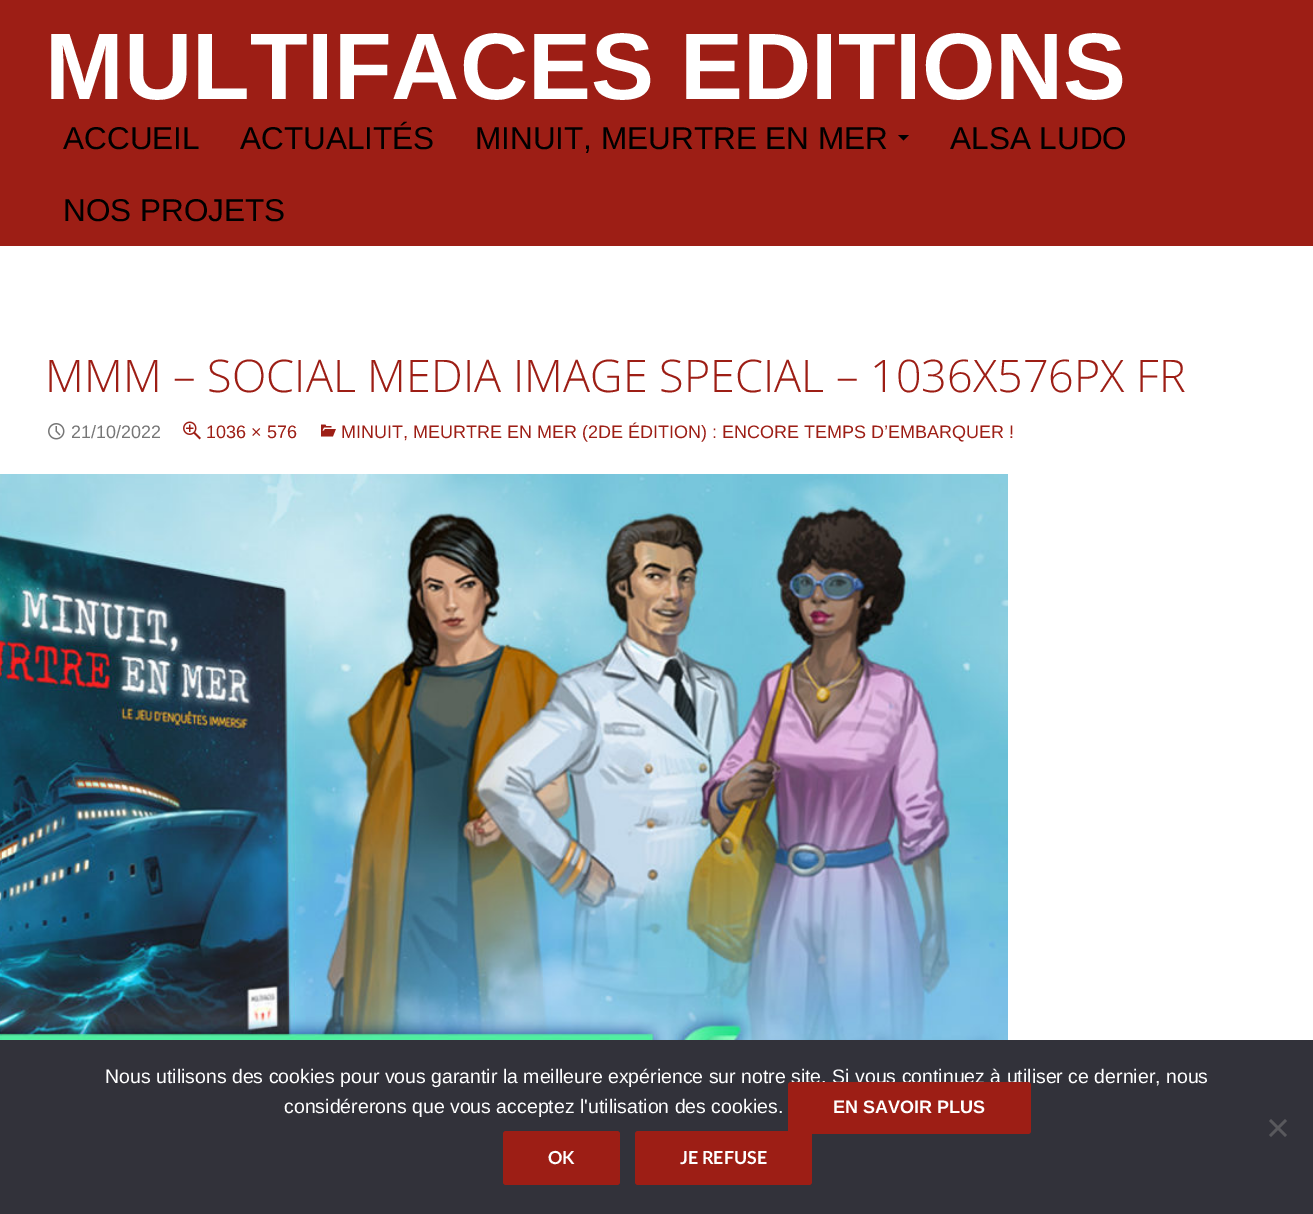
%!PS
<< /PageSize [1313 1214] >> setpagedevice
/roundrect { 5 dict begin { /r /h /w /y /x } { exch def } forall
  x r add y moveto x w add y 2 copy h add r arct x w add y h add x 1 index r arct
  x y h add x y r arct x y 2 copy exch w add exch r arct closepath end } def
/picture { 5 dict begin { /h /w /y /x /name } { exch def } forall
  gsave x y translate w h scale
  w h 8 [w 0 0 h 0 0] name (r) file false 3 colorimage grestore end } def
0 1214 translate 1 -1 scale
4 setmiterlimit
1 setgray
0 0 1313 1214 rectfill
0.616 0.118 0.082 setrgbcolor
0 0 1313 246 rectfill
/LiberationSans-Bold [94.5 0 0 -94.5 0 0] selectfont
1 setgray
45 99 moveto (MULTIFACES EDITIONS) show
/LiberationSans-Regular [31.5 0 0 -31.5 0 0] selectfont
0 setgray
63 149 moveto (ACCUEIL) show
240 149 moveto (ACTUALITÉS) show
475 149 moveto (MINUIT, MEURTRE EN MER) show
newpath 898 135 moveto 909 135 lineto 903.5 140.5 lineto closepath fill
950 149 moveto (ALSA LUDO) show
63 221 moveto (NOS PROJETS) show
/OpenSans-Light [45 0 0 -45 0 0] selectfont
0.616 0.118 0.082 setrgbcolor
45 392 moveto (MMM – SOCIAL MEDIA IMAGE SPECIAL – 1036X576PX FR) show
(img1.rgb) 48 423 17 17 picture
/LiberationSans-Regular [18 0 0 -18 0 0] selectfont
0.463 setgray
71 438 moveto (21/10/2022) show
(img2.rgb) 183 421 18 19 picture
0.616 0.118 0.082 setrgbcolor
206 438 moveto (1036 × 576) show
(img3.rgb) 321 424 15 13 picture
341 438 moveto (MINUIT, MEURTRE EN MER \(2DE ÉDITION\) : ENCORE TEMPS D’EMBARQUER !) show
(img4.rgb) 0 474 1008 566 picture
0.196 0.196 0.227 setrgbcolor
0 1040 1313 174 rectfill
/LiberationSans-Regular [19.5 0 0 -19.5 0 0] selectfont
1 setgray
105 1083 moveto (Nous utilisons des cookies pour vous garantir la meilleure expérience sur notre site. Si vous continuez à utiliser ce dernier, nous) show
284 1113 moveto (considérerons que vous acceptez l'utilisation des cookies.) show
0.616 0.118 0.082 setrgbcolor
788 1082 243 52 3 roundrect fill
/LiberationSans-Bold [18 0 0 -18 0 0] selectfont
1 setgray
833 1113 moveto (EN SAVOIR PLUS) show
0.349 0.349 0.365 setrgbcolor
newpath 1285 1119 moveto 1287 1121 lineto 1271 1137 lineto 1269 1135 lineto closepath fill
newpath 1269 1121 moveto 1271 1119 lineto 1287 1135 lineto 1285 1137 lineto closepath fill
0.616 0.118 0.082 setrgbcolor
503 1131 117 54 3 roundrect fill
/Lato-Bold [18 0 0 -18 0 0] selectfont
1 setgray
548 1164 moveto (OK) show
0.616 0.118 0.082 setrgbcolor
635 1131 177 54 3 roundrect fill
1 setgray
680 1164 moveto (JE REFUSE) show
showpage
